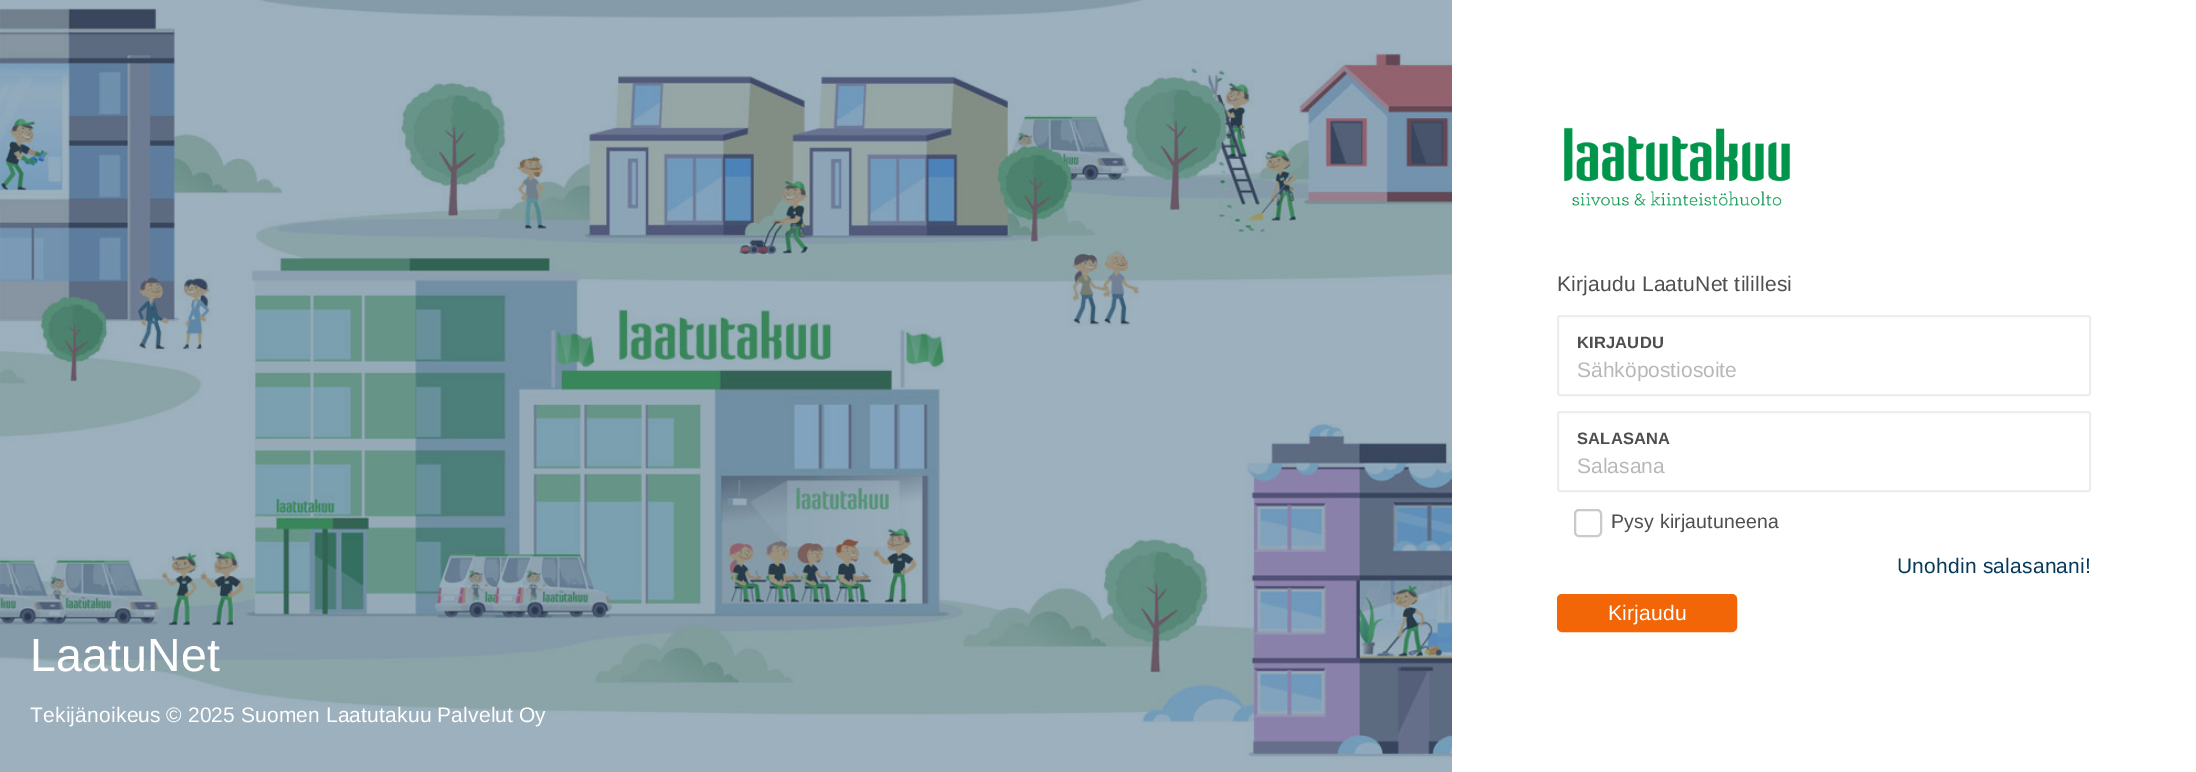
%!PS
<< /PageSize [2196 772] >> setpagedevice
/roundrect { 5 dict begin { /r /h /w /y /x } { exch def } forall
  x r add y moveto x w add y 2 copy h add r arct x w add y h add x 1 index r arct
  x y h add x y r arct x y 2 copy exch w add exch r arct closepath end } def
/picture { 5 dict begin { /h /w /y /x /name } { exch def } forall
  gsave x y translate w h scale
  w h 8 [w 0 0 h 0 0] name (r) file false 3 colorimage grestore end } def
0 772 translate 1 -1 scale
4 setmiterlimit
0.031 0.224 0.357 setrgbcolor
0 0 2196 772 rectfill
1 setgray
1452 0 744 772 rectfill
(img1.rgb) 1564 127 226 79 picture
/LiberationSans-Regular [21 0 0 -21 0 0] selectfont
0.31 setgray
1557 291 moveto 0.2 0 (Kirjaudu LaatuNet tilillesi) ashow
0.929 setgray
2 setlinewidth
1558 316 532 79 2 roundrect stroke
/LiberationSans-Bold [16.5 0 0 -16.5 0 0] selectfont
0.31 setgray
1577 348 moveto 0.2 0 (KIRJAUDU) ashow
/LiberationSans-Regular [21 0 0 -21 0 0] selectfont
0.722 setgray
1577 377 moveto (Sähköpostiosoite) show
0.929 setgray
1558 412 532 79 2 roundrect stroke
/LiberationSans-Bold [16.5 0 0 -16.5 0 0] selectfont
0.31 setgray
1577 444 moveto 0.2 0 (SALASANA) ashow
/LiberationSans-Regular [21 0 0 -21 0 0] selectfont
0.722 setgray
1577 473 moveto (Salasana) show
0.792 setgray
1575 510 26 26 4 roundrect stroke
/LiberationSans-Regular [19.5 0 0 -19.5 0 0] selectfont
0.31 setgray
1611 528 moveto 0.2 0 (Pysy kirjautuneena) ashow
/LiberationSans-Regular [21 0 0 -21 0 0] selectfont
0.031 0.224 0.357 setrgbcolor
1897 573 moveto 0.2 0 (Unohdin salasanani!) ashow
0.949 0.4 0.027 setrgbcolor
1558 595 178 36 4 roundrect gsave fill grestore
stroke
1 setgray
1608 620 moveto 0.2 0 (Kirjaudu) ashow
(img2.rgb) 0 0 1452 772 picture
/LiberationSans-Regular [46.5 0 0 -46.5 0 0] selectfont
30 671 moveto 0.2 0 (LaatuNet) ashow
/LiberationSans-Regular [21 0 0 -21 0 0] selectfont
30 722 moveto -0.5 0 32 0.2 0 (Tekijänoikeus © 2025 Suomen Laatutakuu Palvelut Oy) awidthshow
showpage
